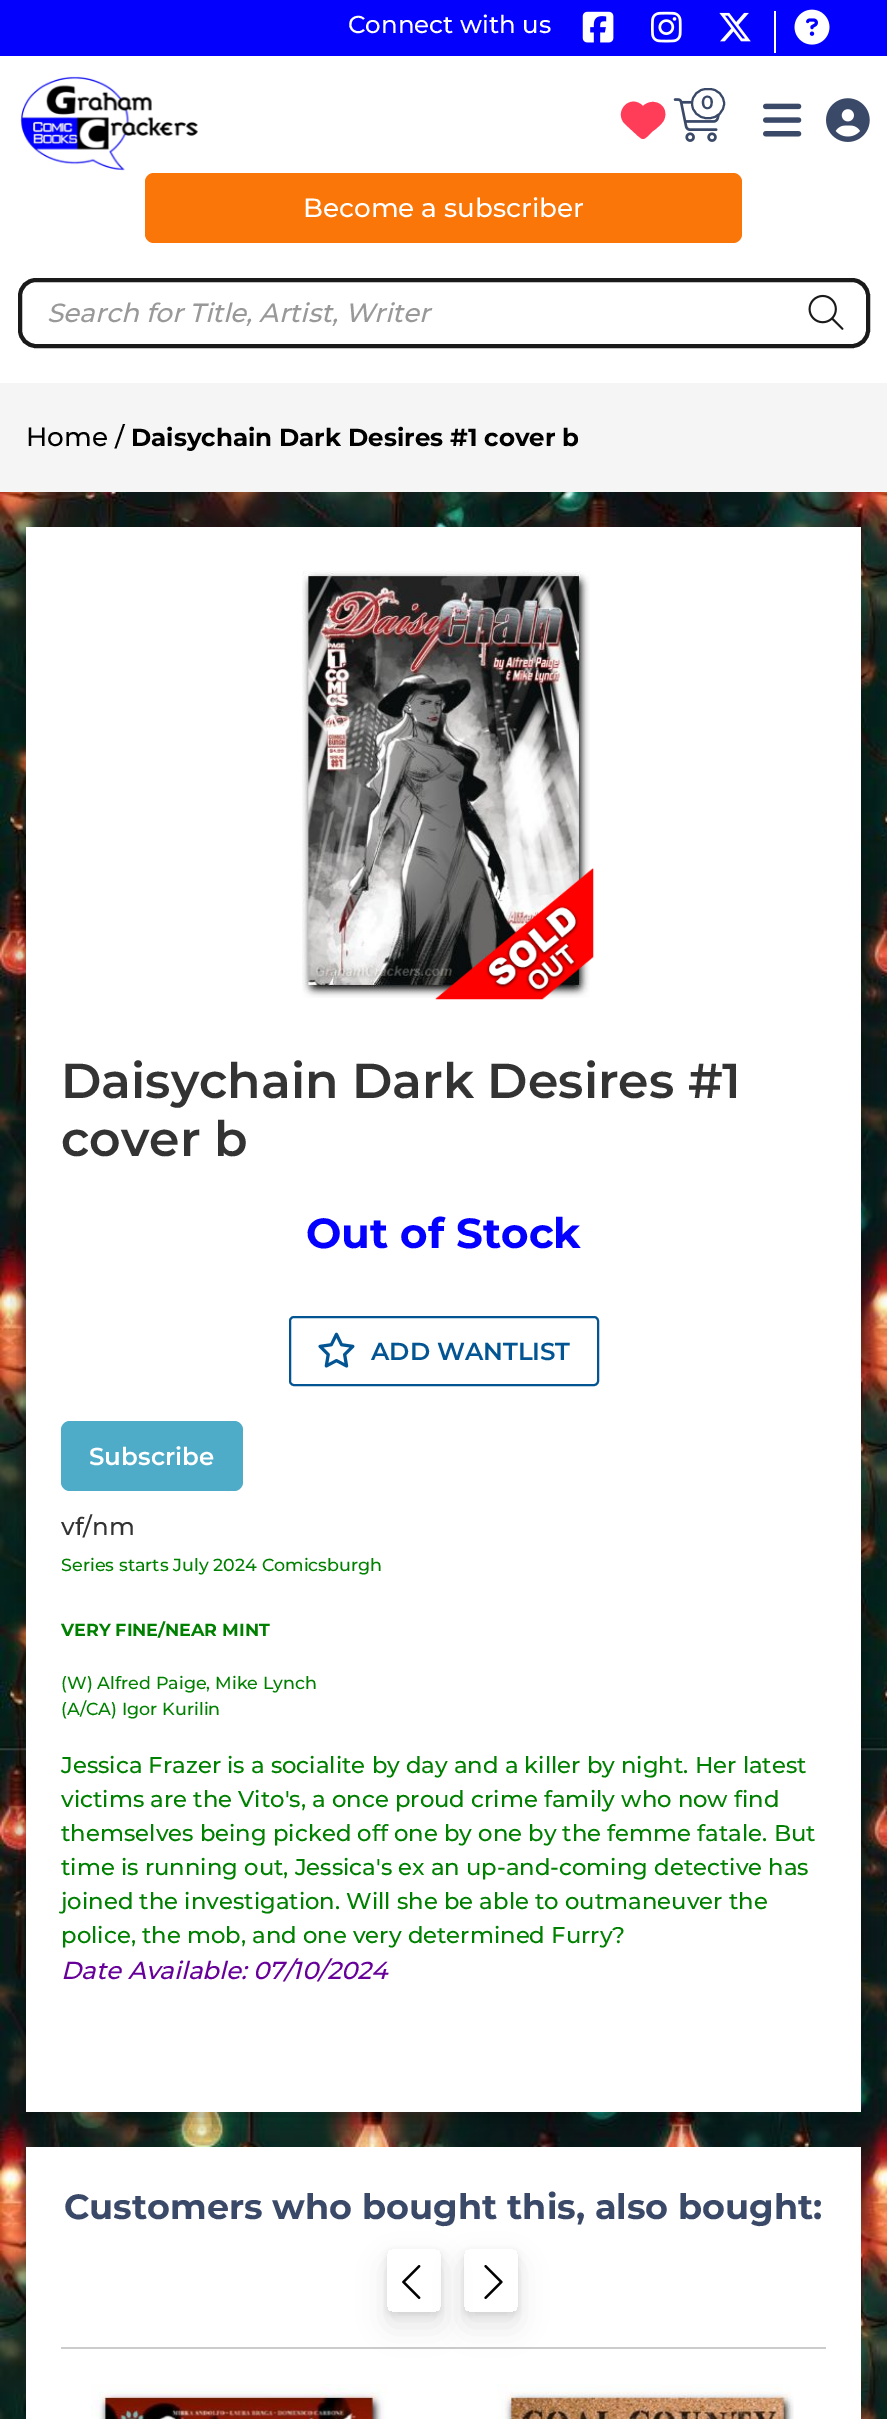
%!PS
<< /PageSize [887 2419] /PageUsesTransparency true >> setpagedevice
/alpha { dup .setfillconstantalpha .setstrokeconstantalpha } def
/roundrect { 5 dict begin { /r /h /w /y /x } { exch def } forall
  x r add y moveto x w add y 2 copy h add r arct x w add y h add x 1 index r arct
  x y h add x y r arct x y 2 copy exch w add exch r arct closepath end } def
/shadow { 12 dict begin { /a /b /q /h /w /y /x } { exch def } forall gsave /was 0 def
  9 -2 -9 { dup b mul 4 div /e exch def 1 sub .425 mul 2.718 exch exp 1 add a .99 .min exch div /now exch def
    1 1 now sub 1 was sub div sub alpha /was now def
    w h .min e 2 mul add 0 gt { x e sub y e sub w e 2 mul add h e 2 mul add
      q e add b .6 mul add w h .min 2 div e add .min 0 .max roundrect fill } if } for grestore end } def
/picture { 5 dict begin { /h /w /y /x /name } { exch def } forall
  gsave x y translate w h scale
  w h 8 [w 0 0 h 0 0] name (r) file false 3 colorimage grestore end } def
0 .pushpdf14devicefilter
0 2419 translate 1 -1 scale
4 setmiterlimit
1 setgray
0 0 887 2419 rectfill
(img1.rgb) 0 492 887 1927 picture
0.012 0 0.992 setrgbcolor
0 0 887 56 rectfill
/Montserrat-Medium [24.5 0 0 -24.5 0 0] selectfont
1 setgray
348 33 moveto (Connect with us) show
(img2.rgb) 582 11 32 32 picture
(img3.rgb) 651 11 31 32 picture
(img4.rgb) 719 12 32 30 picture
774 11 2 42 rectfill
(img5.rgb) 794 9 36 36 picture
(img6.rgb) 20 76 178 95 picture
1 0.239 0.345 setrgbcolor
newpath 625 124 moveto 641 138 lineto 625 124 lineto 638 136 lineto 643 140 643 140 648 136 curveto 653 131 lineto 657 128 662 124 664 120 curveto 670 106 654 96 643 106 curveto 630 93 613 112 625 124 curveto closepath fill
(img7.rgb) 673 98 48 44 picture
1 setgray
692 89 32 29 14.5 roundrect gsave fill grestore
0.227 0.286 0.408 setrgbcolor
2 setlinewidth
stroke
/Montserrat-SemiBold [19 0 0 -19 0 0] selectfont
701 109 moveto (0) show
(img8.rgb) 763 103 39 34 picture
(img9.rgb) 826 98 44 44 picture
0.98 0.463 0.035 setrgbcolor
145 173 597 70 9 roundrect fill
/Montserrat-Medium [26.25 0 0 -26.25 0 0] selectfont
1 setgray
303 217 moveto (Become a subscriber) show
0.102 setgray
4 setlinewidth
20 280 848 66 16 roundrect stroke
/Montserrat-MediumItalic [26.25 0 0 -26.25 0 0] selectfont
0.6 setgray
47 322 moveto (Search for Title, Artist, Writer) show
(img10.rgb) 808 294 36 36 picture
0.961 setgray
0 383 887 109 rectfill
/Montserrat-Medium [26.25 0 0 -26.25 0 0] selectfont
0 setgray
26 446 moveto (Home /) show
/Montserrat-Bold [24.5 0 0 -24.5 0 0] selectfont
131 446 moveto (Daisychain Dark Desires #1 cover b) show
26 536 835 1585 0 13 0.35 shadow
1 setgray
26 527 835 1585 rectfill
(img11.rgb) 302 570 288 428 picture
(img12.rgb) 435 868 159 132 picture
/Montserrat-SemiBold [49 0 0 -49 0 0] selectfont
0.2 setgray
61 1098 moveto (Daisychain Dark Desires #1) show
61 1156 moveto (cover b) show
/Montserrat-Bold [42 0 0 -42 0 0] selectfont
0.012 0 0.992 setrgbcolor
306 1248 moveto (Out of Stock) show
0.008 0.329 0.573 setrgbcolor
2 setlinewidth
290 1317 308 68 4 roundrect stroke
(img13.rgb) 318 1332 37 36 picture
/Montserrat-SemiBold [24.5 0 0 -24.5 0 0] selectfont
371 1360 moveto (ADD WANTLIST) show
0.31 0.675 0.788 setrgbcolor
61 1421 182 70 9 roundrect fill
1 setgray
89 1465 moveto (Subscribe) show
/Montserrat-Medium [24.5 0 0 -24.5 0 0] selectfont
0.2 setgray
61 1535 moveto (vf/nm) show
/Montserrat-Medium [17.5 0 0 -17.5 0 0] selectfont
0 0.502 0 setrgbcolor
61 1571 moveto (Series starts July 2024 Comicsburgh) show
/Montserrat-Bold [17.5 0 0 -17.5 0 0] selectfont
61 1636 moveto (VERY FINE/NEAR MINT) show
/Montserrat-Medium [17.5 0 0 -17.5 0 0] selectfont
61 1689 moveto (\(W\) Alfred Paige, Mike Lynch) show
61 1715 moveto (\(A/CA\) Igor Kurilin) show
/Montserrat-Medium [22.75 0 0 -22.75 0 0] selectfont
61 1773 moveto (Jessica Frazer is a socialite by day and a killer by night. Her latest) show
61 1807 moveto (victims are the Vito's, a once proud crime family who now find) show
61 1841 moveto (themselves being picked off one by one by the femme fatale. But) show
61 1875 moveto (time is running out, Jessica's ex an up-and-coming detective has) show
61 1909 moveto (joined the investigation. Will she be able to outmaneuver the) show
61 1943 moveto (police, the mob, and one very determined Furry?) show
/Montserrat-MediumItalic [24.5 0 0 -24.5 0 0] selectfont
0.4 0 0.6 setrgbcolor
61 1979 moveto (Date Available: 07/10/2024) show
1 setgray
26 2147 835 272 rectfill
/Montserrat-Bold [35 0 0 -35 0 0] selectfont
0.227 0.286 0.408 setrgbcolor
64 2219 moveto (Customers who bought this, also bought:) show
0.8 setgray
61 2347 765 2 rectfill
gsave
newpath 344 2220 moveto 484 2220 lineto 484 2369 lineto 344 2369 lineto closepath 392 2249 moveto 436 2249 lineto 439 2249 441 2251 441 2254 curveto 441 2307 lineto 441 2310 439 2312 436 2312 curveto 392 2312 lineto 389 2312 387 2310 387 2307 curveto 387 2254 lineto 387 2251 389 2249 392 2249 curveto closepath eoclip newpath
0 setgray
387 2263 54 63 5 14 0.1 shadow
grestore
gsave
newpath 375 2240 moveto 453 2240 lineto 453 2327 lineto 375 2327 lineto closepath 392 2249 moveto 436 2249 lineto 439 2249 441 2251 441 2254 curveto 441 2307 lineto 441 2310 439 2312 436 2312 curveto 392 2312 lineto 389 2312 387 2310 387 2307 curveto 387 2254 lineto 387 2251 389 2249 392 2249 curveto closepath eoclip newpath
0 setgray
387 2252 54 63 5 3.5 0.1 shadow
grestore
(img14.rgb) 402 2265 19 34 picture
gsave
newpath 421 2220 moveto 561 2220 lineto 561 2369 lineto 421 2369 lineto closepath 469 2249 moveto 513 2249 lineto 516 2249 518 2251 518 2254 curveto 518 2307 lineto 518 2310 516 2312 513 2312 curveto 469 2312 lineto 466 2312 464 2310 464 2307 curveto 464 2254 lineto 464 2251 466 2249 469 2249 curveto closepath eoclip newpath
0 setgray
464 2263 54 63 5 14 0.1 shadow
grestore
gsave
newpath 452 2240 moveto 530 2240 lineto 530 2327 lineto 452 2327 lineto closepath 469 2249 moveto 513 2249 lineto 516 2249 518 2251 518 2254 curveto 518 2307 lineto 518 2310 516 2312 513 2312 curveto 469 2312 lineto 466 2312 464 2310 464 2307 curveto 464 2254 lineto 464 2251 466 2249 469 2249 curveto closepath eoclip newpath
0 setgray
464 2252 54 63 5 3.5 0.1 shadow
grestore
(img15.rgb) 484 2265 19 34 picture
(img16.rgb) 91 2384 296 35 picture
(img17.rgb) 497 2384 297 35 picture
.poppdf14devicefilter showpage
